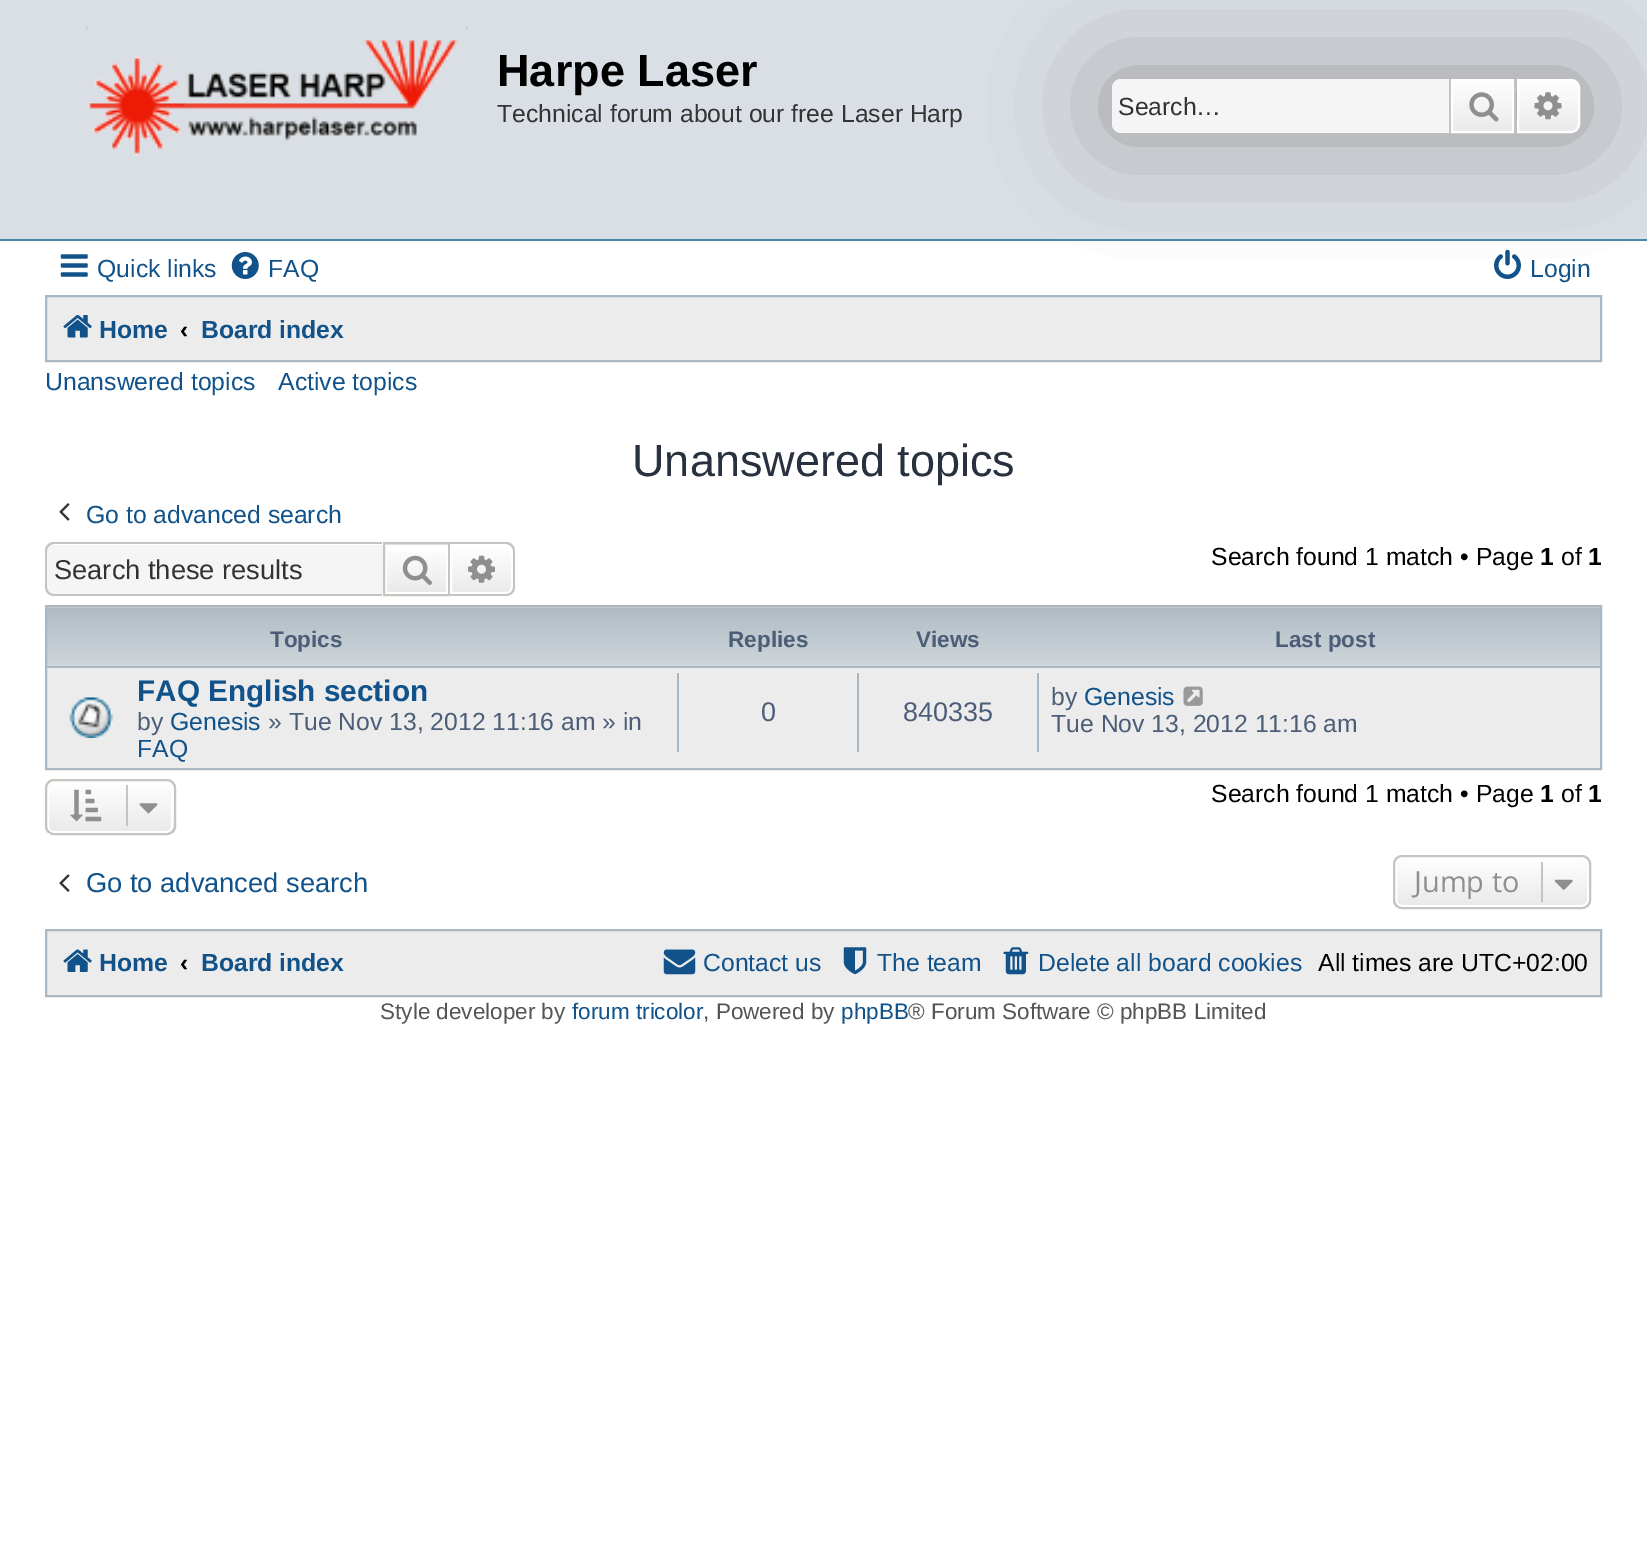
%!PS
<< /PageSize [1647 1567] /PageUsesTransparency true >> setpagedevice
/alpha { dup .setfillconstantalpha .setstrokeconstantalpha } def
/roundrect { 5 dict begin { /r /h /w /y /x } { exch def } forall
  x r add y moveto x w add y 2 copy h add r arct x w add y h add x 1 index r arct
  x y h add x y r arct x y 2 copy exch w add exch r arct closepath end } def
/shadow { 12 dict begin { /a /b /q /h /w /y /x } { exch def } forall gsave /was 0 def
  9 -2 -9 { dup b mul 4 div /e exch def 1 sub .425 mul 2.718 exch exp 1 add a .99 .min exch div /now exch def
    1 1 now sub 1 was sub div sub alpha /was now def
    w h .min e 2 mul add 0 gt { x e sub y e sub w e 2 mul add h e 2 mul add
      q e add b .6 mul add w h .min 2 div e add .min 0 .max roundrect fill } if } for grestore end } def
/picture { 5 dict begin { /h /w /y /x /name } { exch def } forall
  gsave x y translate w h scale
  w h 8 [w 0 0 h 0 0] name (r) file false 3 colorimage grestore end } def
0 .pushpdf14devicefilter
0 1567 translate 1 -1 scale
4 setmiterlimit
1 setgray
0 0 1647 1567 rectfill
0.851 0.875 0.894 setrgbcolor
0 0 1647 239 rectfill
0.278 0.529 0.655 setrgbcolor
0 239 1647 2 rectfill
(img1.rgb) 85 26 383 130 picture
/LiberationSans-Bold [45 0 0 -45 0 0] selectfont
0 setgray
497 86 moveto (Harpe Laser) show
/LiberationSans-Regular [24.75 0 0 -24.75 0 0] selectfont
0.2 setgray
497 122 moveto (Technical forum about our free Laser Harp) show
0.925 setgray
newpath 46 296 moveto 1601 296 lineto 1601 361 lineto 46 361 lineto closepath gsave fill grestore
0.663 0.722 0.761 setrgbcolor
2 setlinewidth
stroke
0.6 setgray
1112 79 468 54 9 56 1 shadow
0.961 setgray
newpath 1121 79 moveto 1449 79 lineto 1449 133 lineto 1121 133 lineto 1116 133 1112 129 1112 124 curveto 1112 88 lineto 1112 83 1116 79 1121 79 curveto closepath fill
0.2 setgray
1118 115 moveto (Search…) show
gsave newpath 1453 81 moveto 1512 81 lineto 1512 131 lineto 1453 131 lineto closepath clip newpath
<< /ShadingType 2 /ColorSpace /DeviceRGB /Coords [1483 79 1483 133] /Extend [true true] /Function << /FunctionType 2 /Domain [0 1] /C0 [1 1 1] /C1 [0.914 0.914 0.914] /N 1 >> >> shfill grestore
1 setgray
1452 80 61 52 rectstroke
0.78 0.765 0.749 setrgbcolor
1514 79 2 54 rectfill
1449 79 2 54 rectfill
(img2.rgb) 1469 92 30 30 picture
gsave newpath 1518 80 moveto 1571 80 lineto 1575.5 80 1579 83.5 1579 88 curveto 1579 124 lineto 1579 128.5 1575.5 132 1571 132 curveto 1518 132 lineto closepath clip newpath
<< /ShadingType 2 /ColorSpace /DeviceRGB /Coords [1548 79 1548 133] /Extend [true true] /Function << /FunctionType 2 /Domain [0 1] /C0 [1 1 1] /C1 [0.914 0.914 0.914] /N 1 >> >> shfill grestore
1 setgray
newpath 1518 80 moveto 1571 80 lineto 1575.5 80 1579 83.5 1579 88 curveto 1579 124 lineto 1579 128.5 1575.5 132 1571 132 curveto 1518 132 lineto closepath stroke
(img3.rgb) 1534 92 28 28 picture
(img4.rgb) 60 254 28 23 picture
0.063 0.322 0.537 setrgbcolor
97 277 moveto (Quick links) show
(img5.rgb) 231 252 28 27 picture
268 277 moveto (FAQ) show
(img6.rgb) 1494 249 27 30 picture
1530 277 moveto (Login) show
(img7.rgb) 63 315 29 23 picture
/LiberationSans-Bold [24.75 0 0 -24.75 0 0] selectfont
99 338 moveto (Home) show
0 setgray
180 338 moveto (‹) show
0.063 0.322 0.537 setrgbcolor
201 338 moveto (Board index) show
/LiberationSans-Regular [24.75 0 0 -24.75 0 0] selectfont
45 390 moveto (Unanswered topics) show
278 390 moveto (Active topics) show
/LiberationSans-Regular [45 0 0 -45 0 0] selectfont
0.157 0.192 0.247 setrgbcolor
632 476 moveto (Unanswered topics) show
(img8.rgb) 59 503 11 18 picture
/LiberationSans-Regular [24.75 0 0 -24.75 0 0] selectfont
0.063 0.322 0.537 setrgbcolor
86 523 moveto (Go to advanced search) show
0.961 setgray
newpath 54 545 moveto 383 545 lineto 383 594 lineto 54 594 lineto 50 594 47 591 47 587 curveto 47 552 lineto 47 548 50 545 54 545 curveto closepath fill
0.78 0.765 0.749 setrgbcolor
newpath 54 542 moveto 382 542 lineto 382 596 lineto 54 596 lineto 49 596 45 592 45 587 curveto 45 551 lineto 45 546 49 542 54 542 curveto closepath 54 544 moveto 382 544 lineto 382 594 lineto 54 594 lineto 50 594 47 591 47 587 curveto 47 551 lineto 47 548 50 544 54 544 curveto closepath eofill
/LiberationSans-Regular [27.25 0 0 -27.25 0 0] selectfont
0.2 setgray
54 579 moveto (Search these results) show
0.914 setgray
385 544 63 1 rectfill
gsave newpath 387 551 moveto 446 551 lineto 446 592 lineto 387 592 lineto closepath clip newpath
<< /ShadingType 2 /ColorSpace /DeviceRGB /Coords [416 545 416 594] /Extend [true true] /Function << /FunctionType 2 /Domain [0 1] /C0 [1 1 1] /C1 [0.914 0.914 0.914] /N 1 >> >> shfill grestore
0.78 0.765 0.749 setrgbcolor
384 543 65 52 rectstroke
(img9.rgb) 402 555 30 30 picture
gsave newpath 451 546 moveto 506 546 lineto 509.5 546 512 548.5 512 552 curveto 512 587 lineto 512 590.5 509.5 593 506 593 curveto 451 593 lineto closepath clip newpath
<< /ShadingType 2 /ColorSpace /DeviceRGB /Coords [482 545 482 594] /Extend [true true] /Function << /FunctionType 2 /Domain [0 1] /C0 [1 1 1] /C1 [0.914 0.914 0.914] /N 1 >> >> shfill grestore
1 setgray
newpath 451 546 moveto 506 546 lineto 509.5 546 512 548.5 512 552 curveto 512 587 lineto 512 590.5 509.5 593 506 593 curveto 451 593 lineto closepath stroke
0.78 0.765 0.749 setrgbcolor
newpath 450 542 moveto 506 542 lineto 511 542 515 546 515 551 curveto 515 587 lineto 515 592 511 596 506 596 curveto 450 596 lineto closepath 450 544 moveto 506 544 lineto 510 544 513 548 513 551 curveto 513 587 lineto 513 591 510 594 506 594 curveto 450 594 lineto closepath eofill
(img10.rgb) 468 555 27 28 picture
/LiberationSans-Regular [24.75 0 0 -24.75 0 0] selectfont
0 setgray
1211 565 moveto (Search found 1 match • Page) show
/LiberationSans-Bold [24.75 0 0 -24.75 0 0] selectfont
1540 565 moveto (1) show
/LiberationSans-Regular [24.75 0 0 -24.75 0 0] selectfont
1561 565 moveto (of) show
/LiberationSans-Bold [24.75 0 0 -24.75 0 0] selectfont
1588 565 moveto (1) show
0.925 setgray
47 607 1553 161 rectfill
(img11.rgb) 47 607 1553 59 picture
0.663 0.722 0.761 setrgbcolor
46 606 1555 163 rectstroke
/LiberationSans-Bold [22.5 0 0 -22.5 0 0] selectfont
0.298 0.365 0.467 setrgbcolor
270 647 moveto (Topics) show
728 647 moveto (Replies) show
916 647 moveto (Views) show
1275 647 moveto (Last post) show
0.663 0.722 0.761 setrgbcolor
47 666 1553 2 rectfill
(img12.rgb) 69 697 44 41 picture
/LiberationSans-Bold [29.75 0 0 -29.75 0 0] selectfont
0.063 0.322 0.537 setrgbcolor
137 701 moveto (FAQ English section) show
/LiberationSans-Regular [24.75 0 0 -24.75 0 0] selectfont
0.298 0.365 0.467 setrgbcolor
137 730 moveto (by) show
0.063 0.322 0.537 setrgbcolor
170 730 moveto (Genesis) show
0.298 0.365 0.467 setrgbcolor
268 730 moveto (» Tue Nov 13, 2012 11:16 am » in) show
0.063 0.322 0.537 setrgbcolor
137 757 moveto (FAQ) show
0.663 0.722 0.761 setrgbcolor
677 673 2 79 rectfill
/LiberationSans-Regular [27 0 0 -27 0 0] selectfont
0.298 0.365 0.467 setrgbcolor
761 721 moveto (0) show
0.663 0.722 0.761 setrgbcolor
857 673 2 79 rectfill
0.298 0.365 0.467 setrgbcolor
903 721 moveto (840335) show
0.663 0.722 0.761 setrgbcolor
1037 673 2 79 rectfill
/LiberationSans-Regular [24.75 0 0 -24.75 0 0] selectfont
0.298 0.365 0.467 setrgbcolor
1051 705 moveto (by) show
0.063 0.322 0.537 setrgbcolor
1084 705 moveto (Genesis) show
(img13.rgb) 1183 686 20 20 picture
0.298 0.365 0.467 setrgbcolor
1051 732 moveto (Tue Nov 13, 2012 11:16 am) show
gsave
45 779 131 56 9 roundrect clip newpath
gsave newpath 45 781 moveto 176 781 lineto 176 833 lineto 45 833 lineto closepath clip newpath
<< /ShadingType 2 /ColorSpace /DeviceRGB /Coords [110 781 110 833] /Extend [true true] /Function << /FunctionType 2 /Domain [0 1] /C0 [1 1 1] /C1 [0.914 0.914 0.914] /N 1 >> >> shfill grestore
grestore
1 setgray
48 782 124 50 6 roundrect stroke
0.78 0.765 0.749 setrgbcolor
46 780 129 54 8 roundrect stroke
(img14.rgb) 70 789 32 33 picture
126 785 2 41 rectfill
(img15.rgb) 139 803 19 11 picture
0 setgray
1211 802 moveto (Search found 1 match • Page) show
/LiberationSans-Bold [24.75 0 0 -24.75 0 0] selectfont
1540 802 moveto (1) show
/LiberationSans-Regular [24.75 0 0 -24.75 0 0] selectfont
1561 802 moveto (of) show
/LiberationSans-Bold [24.75 0 0 -24.75 0 0] selectfont
1588 802 moveto (1) show
(img16.rgb) 59 874 11 18 picture
/LiberationSans-Regular [27.25 0 0 -27.25 0 0] selectfont
0.063 0.322 0.537 setrgbcolor
86 892 moveto (Go to advanced search) show
gsave
1393 855 198 54 9 roundrect clip newpath
gsave newpath 1393 857 moveto 1591 857 lineto 1591 907 lineto 1393 907 lineto closepath clip newpath
<< /ShadingType 2 /ColorSpace /DeviceRGB /Coords [1492 857 1492 907] /Extend [true true] /Function << /FunctionType 2 /Domain [0 1] /C0 [1 1 1] /C1 [0.914 0.914 0.914] /N 1 >> >> shfill grestore
grestore
1 setgray
1396 858 192 48 6 roundrect stroke
0.78 0.765 0.749 setrgbcolor
1394 856 196 52 8 roundrect stroke
/OpenSans-Regular [29 0 0 -29 0 0] selectfont
0.561 setgray
1414 892 moveto (Jump to) show
0.78 0.765 0.749 setrgbcolor
1541 862 2 40 rectfill
(img17.rgb) 1554 879 19 11 picture
0.925 setgray
newpath 46 930 moveto 1601 930 lineto 1601 996 lineto 46 996 lineto closepath gsave fill grestore
0.663 0.722 0.761 setrgbcolor
stroke
(img18.rgb) 63 949 29 23 picture
/LiberationSans-Bold [24.75 0 0 -24.75 0 0] selectfont
0.063 0.322 0.537 setrgbcolor
99 971 moveto (Home) show
0 setgray
180 971 moveto (‹) show
0.063 0.322 0.537 setrgbcolor
201 971 moveto (Board index) show
(img19.rgb) 663 949 33 26 picture
/LiberationSans-Regular [24.75 0 0 -24.75 0 0] selectfont
703 971 moveto (Contact us) show
(img20.rgb) 843 947 24 28 picture
877 971 moveto (The team) show
(img21.rgb) 1003 947 26 28 picture
1038 971 moveto (Delete all board cookies) show
0 setgray
1318 971 moveto (All times are UTC+02:00) show
/LiberationSans-Regular [22.5 0 0 -22.5 0 0] selectfont
0.333 setgray
380 1019 moveto (Style developer by) show
0.063 0.322 0.537 setrgbcolor
572 1019 moveto (forum tricolor) show
0.333 setgray
703 1019 moveto (, Powered by) show
0.063 0.322 0.537 setrgbcolor
841 1019 moveto (phpBB) show
0.333 setgray
908 1019 moveto (® Forum Software © phpBB Limited) show
.poppdf14devicefilter showpage
